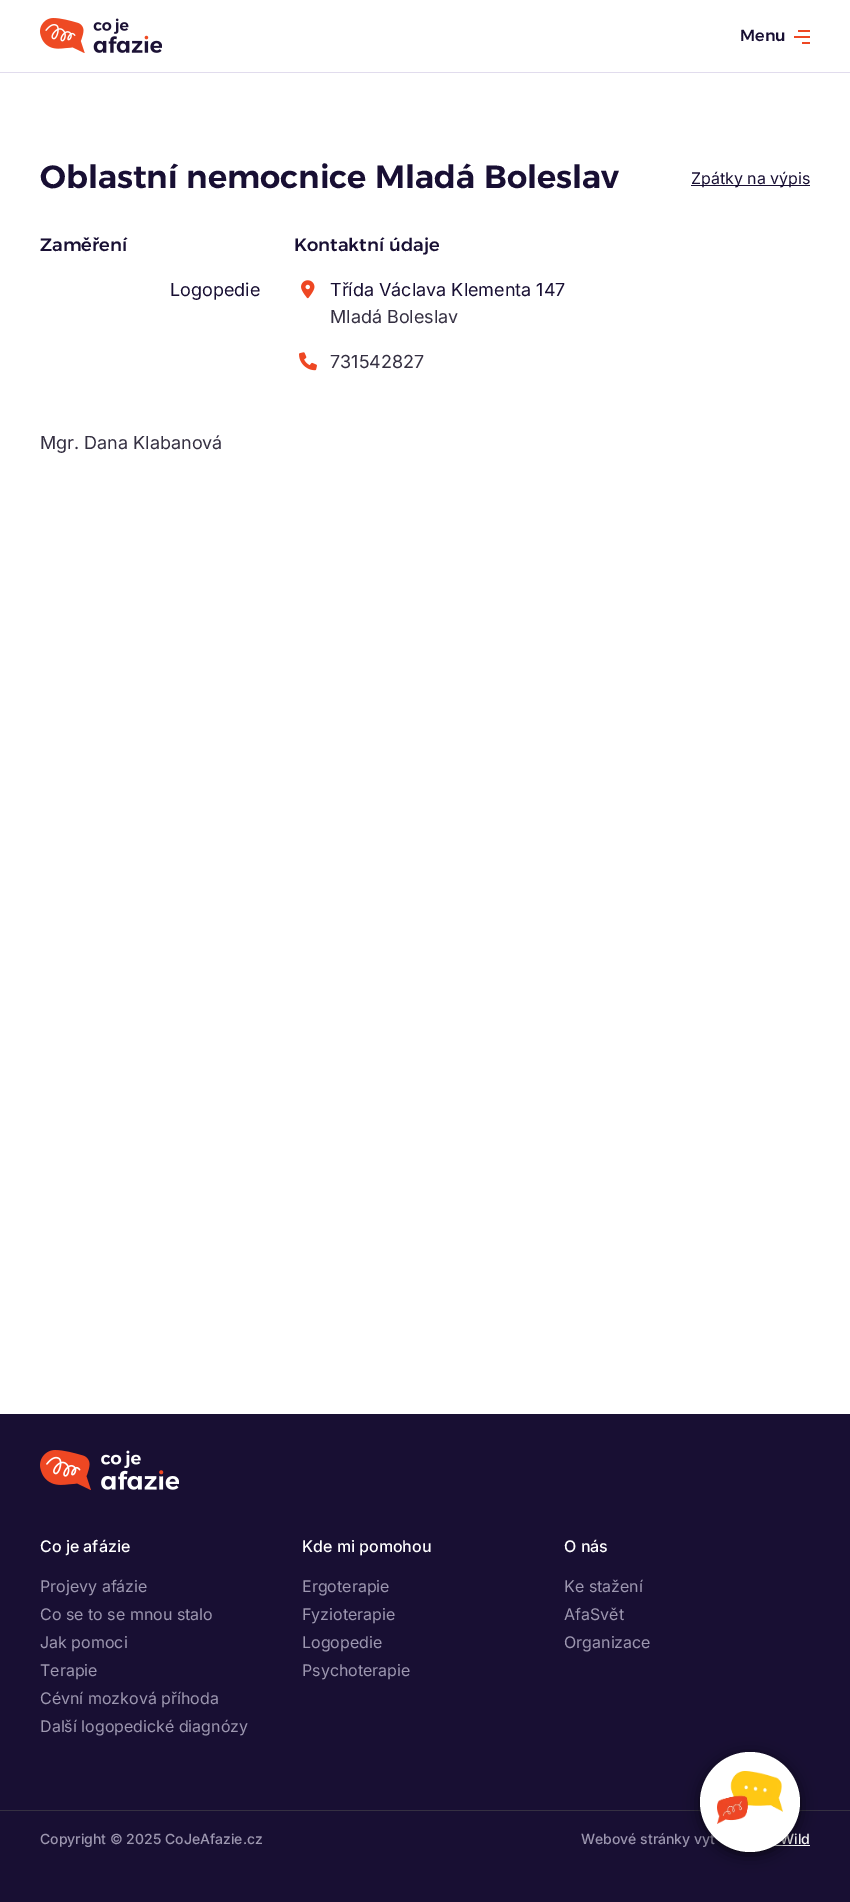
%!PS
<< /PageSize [850 1902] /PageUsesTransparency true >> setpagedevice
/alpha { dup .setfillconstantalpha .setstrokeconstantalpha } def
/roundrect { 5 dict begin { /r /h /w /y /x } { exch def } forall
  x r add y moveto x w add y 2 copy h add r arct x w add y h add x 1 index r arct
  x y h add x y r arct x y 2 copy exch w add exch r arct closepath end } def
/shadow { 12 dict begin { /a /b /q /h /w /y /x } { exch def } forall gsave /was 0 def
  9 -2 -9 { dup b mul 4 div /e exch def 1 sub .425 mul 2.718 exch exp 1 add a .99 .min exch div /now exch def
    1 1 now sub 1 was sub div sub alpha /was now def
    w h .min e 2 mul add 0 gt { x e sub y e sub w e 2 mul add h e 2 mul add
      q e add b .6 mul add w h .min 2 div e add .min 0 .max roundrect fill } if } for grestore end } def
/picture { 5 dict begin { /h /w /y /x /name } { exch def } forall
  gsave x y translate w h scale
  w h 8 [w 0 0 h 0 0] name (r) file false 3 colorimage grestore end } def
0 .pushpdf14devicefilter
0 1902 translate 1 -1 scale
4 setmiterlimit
1 setgray
0 0 850 1902 rectfill
0.882 0.863 0.929 setrgbcolor
0 72 850 1 rectfill
(img1.rgb) 40 18 122 35 picture
/Alexandria-Medium [16 0 0 -16 0 0] selectfont
0.094 0.059 0.2 setrgbcolor
740 41 moveto (Menu) show
0.933 0.278 0.137 setrgbcolor
798 30 12 2 rectfill
794 36 16 2 rectfill
802 42 8 2 rectfill
/Alexandria-SemiBold [32 0 0 -32 0 0] selectfont
0.094 0.059 0.2 setrgbcolor
40 188 moveto (Oblastní nemocnice Mladá Boleslav) show
691 185 119 1 rectfill
/Inter-Regular [16 0 0 -16 0 0] selectfont
691 184 moveto (Zpátky na výpis) show
/Alexandria-Medium [18 0 0 -18 0 0] selectfont
40 251 moveto (Zaměření) show
/Inter-Regular [18 0 0 -18 0 0] selectfont
170 296 moveto (Logopedie) show
/Alexandria-Medium [18 0 0 -18 0 0] selectfont
294 251 moveto (Kontaktní údaje) show
(img2.rgb) 301 280 14 19 picture
/Inter-Regular [18 0 0 -18 0 0] selectfont
330 296 moveto (Třída Václava Klementa 147) show
0.208 0.188 0.259 setrgbcolor
330 323 moveto (Mladá Boleslav) show
(img3.rgb) 299 352 18 19 picture
330 368 moveto (731542827) show
40 449 moveto (Mgr. Dana Klabanová) show
0.094 0.059 0.2 setrgbcolor
0 1414 850 488 rectfill
(img4.rgb) 40 1450 139 40 picture
/Inter-Medium [16 0 0 -16 0 0] selectfont
1 setgray
40 1552 moveto (Co je afázie) show
/Inter-Regular [16 0 0 -16 0 0] selectfont
0.616 0.592 0.69 setrgbcolor
40 1592 moveto (Projevy afázie) show
40 1620 moveto (Co se to se mnou stalo) show
40 1648 moveto (Jak pomoci) show
40 1676 moveto (Terapie) show
40 1704 moveto (Cévní mozková příhoda) show
40 1732 moveto (Další logopedické diagnózy) show
/Inter-Medium [16 0 0 -16 0 0] selectfont
1 setgray
302 1552 moveto (Kde mi pomohou) show
/Inter-Regular [16 0 0 -16 0 0] selectfont
0.616 0.592 0.69 setrgbcolor
302 1592 moveto (Ergoterapie) show
302 1620 moveto (Fyzioterapie) show
302 1648 moveto (Logopedie) show
302 1676 moveto (Psychoterapie) show
/Inter-Medium [16 0 0 -16 0 0] selectfont
1 setgray
564 1552 moveto (O nás) show
/Inter-Regular [16 0 0 -16 0 0] selectfont
0.616 0.592 0.69 setrgbcolor
564 1592 moveto (Ke stažení) show
564 1620 moveto (AfaSvět) show
564 1648 moveto (Organizace) show
0.208 0.188 0.259 setrgbcolor
0 1810 850 1 rectfill
/Inter-Medium [14 0 0 -14 0 0] selectfont
0.616 0.592 0.69 setrgbcolor
40 1844 moveto (Copyright © 2025 CoJeAfazie.cz) show
581 1844 moveto (Webové stránky vyt) show
1 setgray
780 1844 moveto (Wild) show
773 1845 37 1 rectfill
0 setgray
700 1753 100 100 50 2.5 0.12 shadow
702 1757 96 96 48 0.5 0.2 shadow
700 1755 100 100 50 8 0.6 shadow
1 setgray
newpath 750 1802 50 0 360 arc closepath fill
(img5.rgb) 717 1771 66 53 picture
.poppdf14devicefilter showpage
